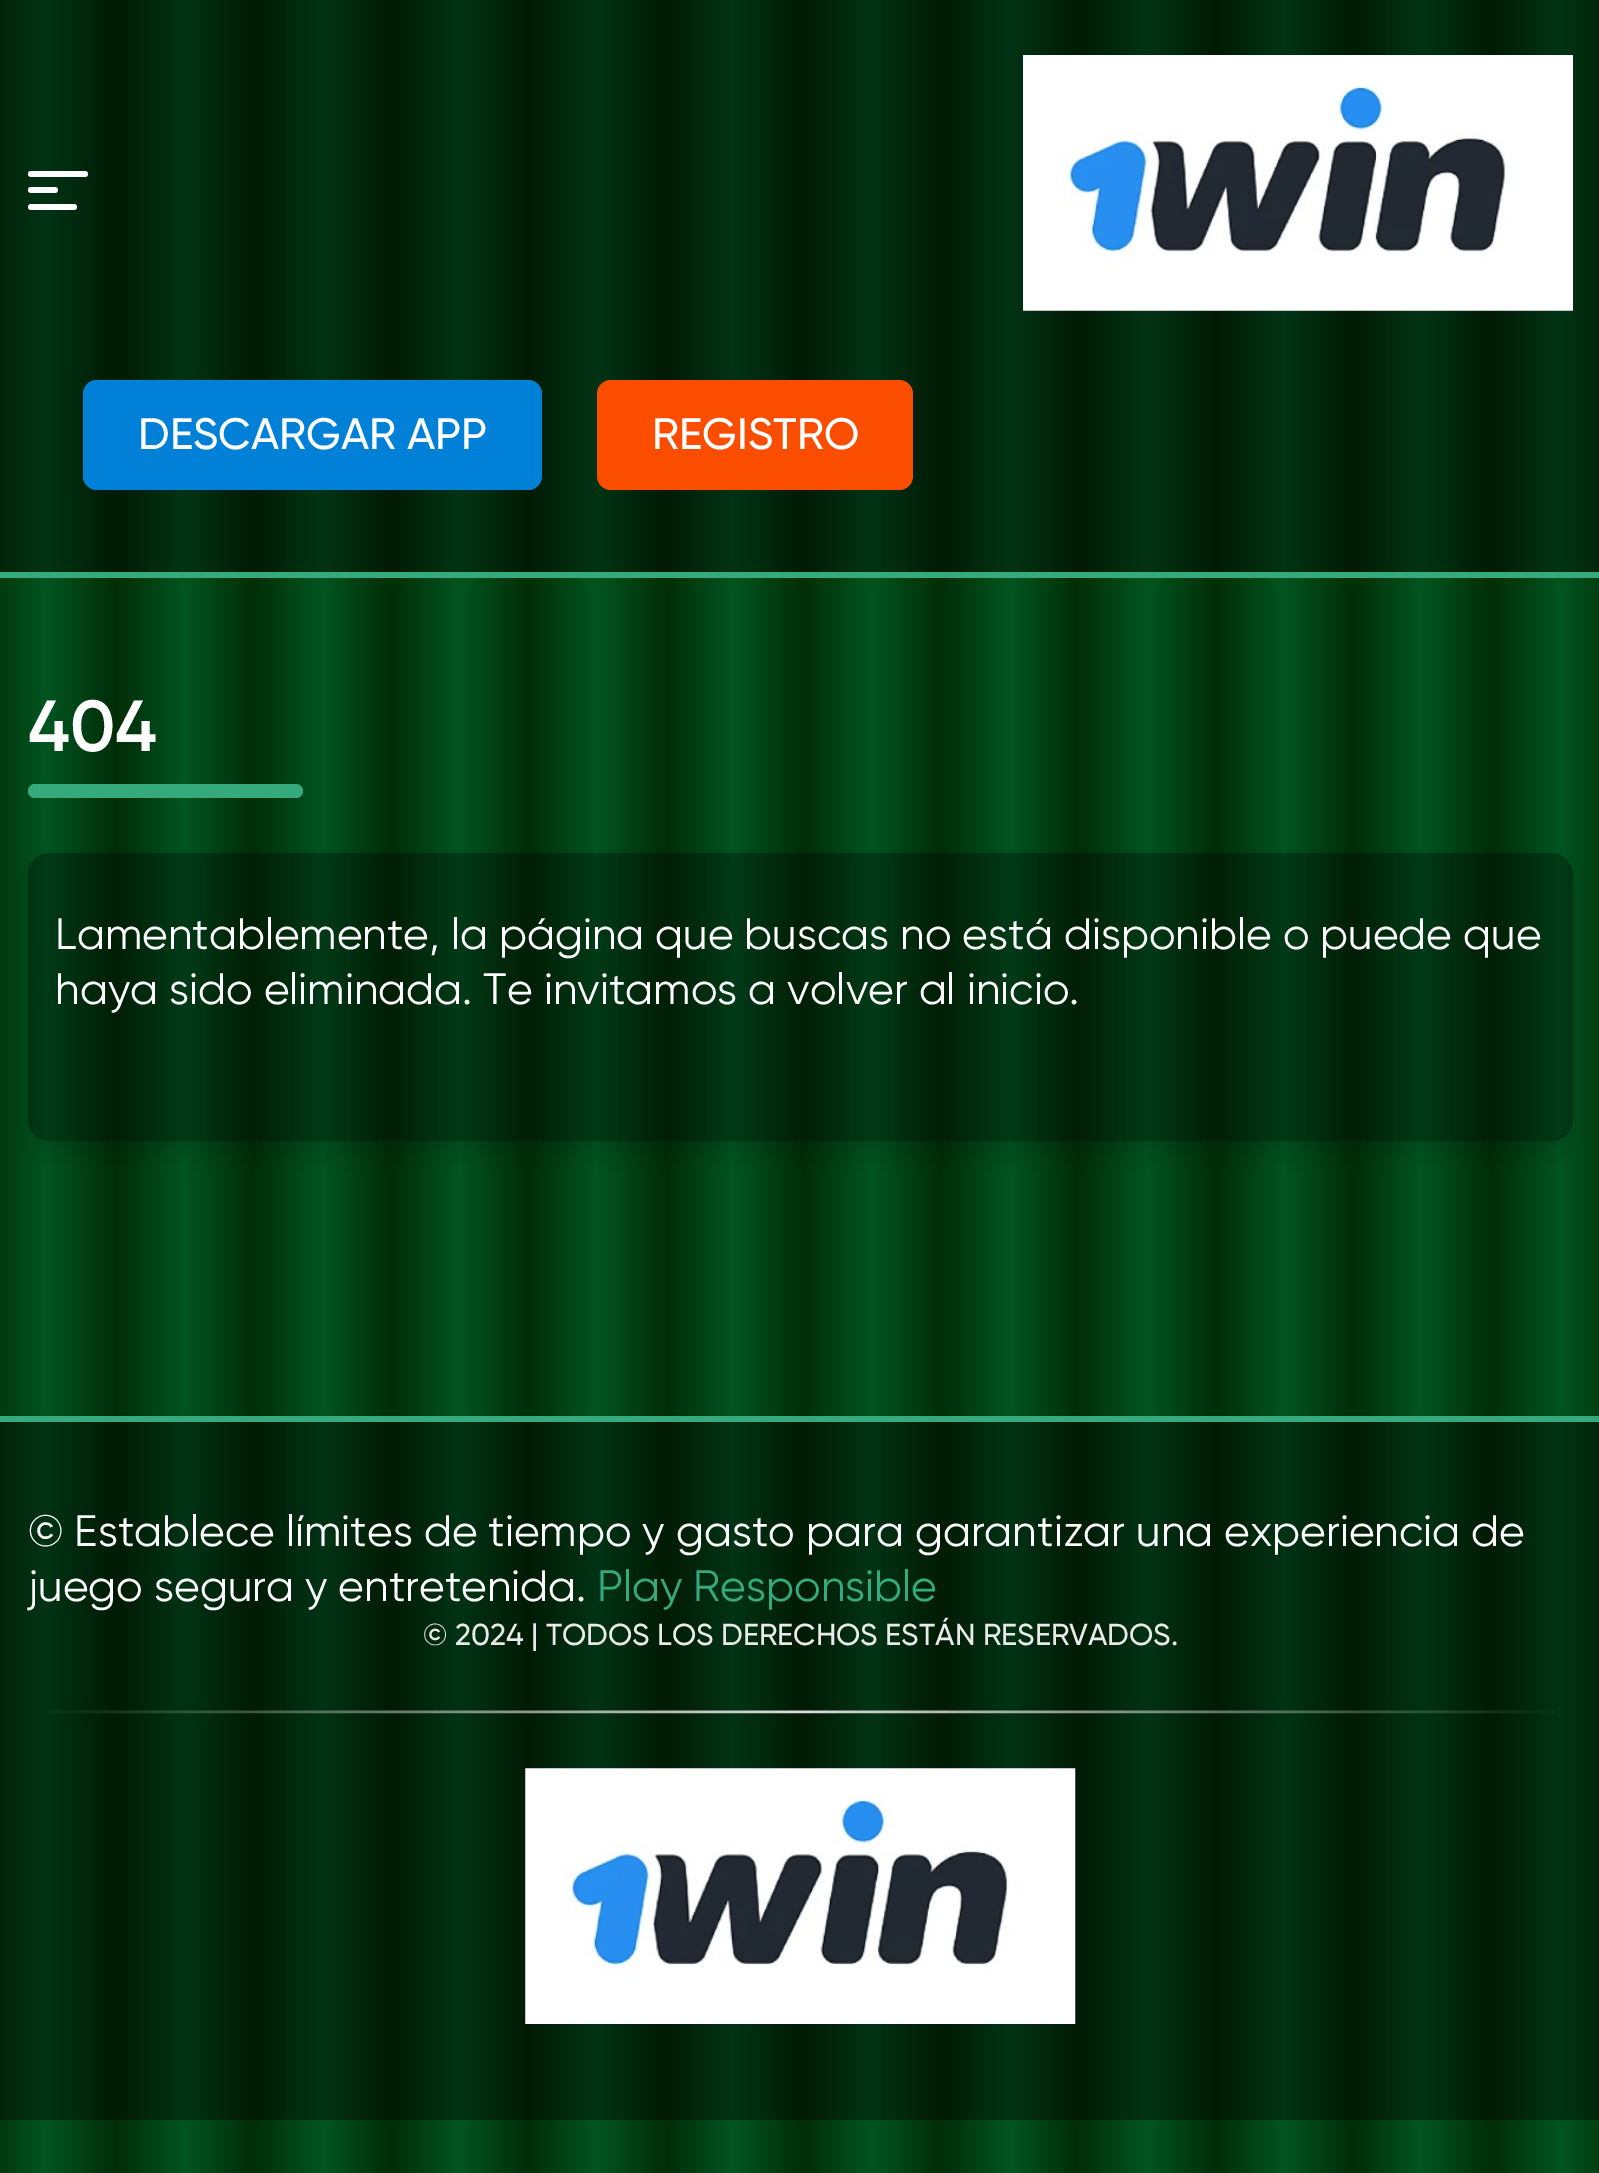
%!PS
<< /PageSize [1599 2173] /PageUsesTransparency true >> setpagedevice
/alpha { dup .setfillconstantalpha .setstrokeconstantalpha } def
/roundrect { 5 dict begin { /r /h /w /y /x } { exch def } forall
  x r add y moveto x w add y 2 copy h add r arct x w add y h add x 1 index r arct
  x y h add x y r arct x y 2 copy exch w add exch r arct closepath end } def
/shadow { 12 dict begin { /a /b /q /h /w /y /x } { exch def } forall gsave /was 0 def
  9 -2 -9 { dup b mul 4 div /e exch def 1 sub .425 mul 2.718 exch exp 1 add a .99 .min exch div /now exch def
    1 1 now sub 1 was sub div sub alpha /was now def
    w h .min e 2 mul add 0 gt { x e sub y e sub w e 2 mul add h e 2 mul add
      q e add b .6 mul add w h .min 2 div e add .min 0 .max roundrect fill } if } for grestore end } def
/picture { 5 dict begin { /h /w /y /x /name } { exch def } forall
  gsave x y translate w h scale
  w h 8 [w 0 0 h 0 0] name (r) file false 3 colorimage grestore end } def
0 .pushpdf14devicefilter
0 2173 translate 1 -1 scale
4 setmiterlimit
1 setgray
0 0 1599 2173 rectfill
gsave newpath 0 578 moveto 116 578 lineto 116 2173 lineto 0 2173 lineto closepath clip newpath
<< /ShadingType 2 /ColorSpace /DeviceRGB /Coords [-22 1060 116 1060] /Extend [true true] /Function << /FunctionType 3 /Domain [0 1] /Functions [<< /FunctionType 2 /Domain [0 1] /C0 [0.004 0.176 0.027] /C1 [0.004 0.333 0.129] /N 1 >> << /FunctionType 2 /Domain [0 1] /C0 [0.004 0.333 0.129] /C1 [0.004 0.176 0.027] /N 1 >>] /Bounds [0.5] /Encode [0 1 0 1] >> >> shfill grestore
gsave newpath 0 1422 moveto 116 1422 lineto 116 2120 lineto 0 2120 lineto closepath clip newpath
<< /ShadingType 2 /ColorSpace /DeviceRGB /Coords [-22 1060 116 1060] /Extend [true true] /Function << /FunctionType 3 /Domain [0 1] /Functions [<< /FunctionType 2 /Domain [0 1] /C0 [0.004 0.106 0.016] /C1 [0.004 0.2 0.078] /N 1 >> << /FunctionType 2 /Domain [0 1] /C0 [0.004 0.2 0.078] /C1 [0.004 0.106 0.016] /N 1 >>] /Bounds [0.5] /Encode [0 1 0 1] >> >> shfill grestore
gsave newpath 0 0 moveto 116 0 lineto 116 572 lineto 0 572 lineto closepath clip newpath
<< /ShadingType 2 /ColorSpace /DeviceRGB /Coords [-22 1060 116 1060] /Extend [true true] /Function << /FunctionType 3 /Domain [0 1] /Functions [<< /FunctionType 2 /Domain [0 1] /C0 [0.004 0.106 0.016] /C1 [0.004 0.2 0.078] /N 1 >> << /FunctionType 2 /Domain [0 1] /C0 [0.004 0.2 0.078] /C1 [0.004 0.106 0.016] /N 1 >>] /Bounds [0.5] /Encode [0 1 0 1] >> >> shfill grestore
gsave newpath 116 578 moveto 253 578 lineto 253 2173 lineto 116 2173 lineto closepath clip newpath
<< /ShadingType 2 /ColorSpace /DeviceRGB /Coords [115 1060 253 1060] /Extend [true true] /Function << /FunctionType 3 /Domain [0 1] /Functions [<< /FunctionType 2 /Domain [0 1] /C0 [0.004 0.176 0.027] /C1 [0.004 0.333 0.129] /N 1 >> << /FunctionType 2 /Domain [0 1] /C0 [0.004 0.333 0.129] /C1 [0.004 0.176 0.027] /N 1 >>] /Bounds [0.5] /Encode [0 1 0 1] >> >> shfill grestore
gsave newpath 116 1422 moveto 253 1422 lineto 253 2120 lineto 116 2120 lineto closepath clip newpath
<< /ShadingType 2 /ColorSpace /DeviceRGB /Coords [115 1060 253 1060] /Extend [true true] /Function << /FunctionType 3 /Domain [0 1] /Functions [<< /FunctionType 2 /Domain [0 1] /C0 [0.004 0.106 0.016] /C1 [0.004 0.2 0.078] /N 1 >> << /FunctionType 2 /Domain [0 1] /C0 [0.004 0.2 0.078] /C1 [0.004 0.106 0.016] /N 1 >>] /Bounds [0.5] /Encode [0 1 0 1] >> >> shfill grestore
gsave newpath 116 0 moveto 253 0 lineto 253 572 lineto 116 572 lineto closepath clip newpath
<< /ShadingType 2 /ColorSpace /DeviceRGB /Coords [115 1060 253 1060] /Extend [true true] /Function << /FunctionType 3 /Domain [0 1] /Functions [<< /FunctionType 2 /Domain [0 1] /C0 [0.004 0.106 0.016] /C1 [0.004 0.2 0.078] /N 1 >> << /FunctionType 2 /Domain [0 1] /C0 [0.004 0.2 0.078] /C1 [0.004 0.106 0.016] /N 1 >>] /Bounds [0.5] /Encode [0 1 0 1] >> >> shfill grestore
gsave newpath 253 578 moveto 391 578 lineto 391 2173 lineto 253 2173 lineto closepath clip newpath
<< /ShadingType 2 /ColorSpace /DeviceRGB /Coords [253 1060 391 1060] /Extend [true true] /Function << /FunctionType 3 /Domain [0 1] /Functions [<< /FunctionType 2 /Domain [0 1] /C0 [0.004 0.176 0.027] /C1 [0.004 0.333 0.129] /N 1 >> << /FunctionType 2 /Domain [0 1] /C0 [0.004 0.333 0.129] /C1 [0.004 0.176 0.027] /N 1 >>] /Bounds [0.5] /Encode [0 1 0 1] >> >> shfill grestore
gsave newpath 253 1422 moveto 391 1422 lineto 391 2120 lineto 253 2120 lineto closepath clip newpath
<< /ShadingType 2 /ColorSpace /DeviceRGB /Coords [253 1060 391 1060] /Extend [true true] /Function << /FunctionType 3 /Domain [0 1] /Functions [<< /FunctionType 2 /Domain [0 1] /C0 [0.004 0.106 0.016] /C1 [0.004 0.2 0.078] /N 1 >> << /FunctionType 2 /Domain [0 1] /C0 [0.004 0.2 0.078] /C1 [0.004 0.106 0.016] /N 1 >>] /Bounds [0.5] /Encode [0 1 0 1] >> >> shfill grestore
gsave newpath 253 0 moveto 391 0 lineto 391 572 lineto 253 572 lineto closepath clip newpath
<< /ShadingType 2 /ColorSpace /DeviceRGB /Coords [253 1060 391 1060] /Extend [true true] /Function << /FunctionType 3 /Domain [0 1] /Functions [<< /FunctionType 2 /Domain [0 1] /C0 [0.004 0.106 0.016] /C1 [0.004 0.2 0.078] /N 1 >> << /FunctionType 2 /Domain [0 1] /C0 [0.004 0.2 0.078] /C1 [0.004 0.106 0.016] /N 1 >>] /Bounds [0.5] /Encode [0 1 0 1] >> >> shfill grestore
gsave newpath 391 578 moveto 528 578 lineto 528 2173 lineto 391 2173 lineto closepath clip newpath
<< /ShadingType 2 /ColorSpace /DeviceRGB /Coords [390 1060 528 1060] /Extend [true true] /Function << /FunctionType 3 /Domain [0 1] /Functions [<< /FunctionType 2 /Domain [0 1] /C0 [0.004 0.176 0.027] /C1 [0.004 0.333 0.129] /N 1 >> << /FunctionType 2 /Domain [0 1] /C0 [0.004 0.333 0.129] /C1 [0.004 0.176 0.027] /N 1 >>] /Bounds [0.5] /Encode [0 1 0 1] >> >> shfill grestore
gsave newpath 391 1422 moveto 528 1422 lineto 528 2120 lineto 391 2120 lineto closepath clip newpath
<< /ShadingType 2 /ColorSpace /DeviceRGB /Coords [390 1060 528 1060] /Extend [true true] /Function << /FunctionType 3 /Domain [0 1] /Functions [<< /FunctionType 2 /Domain [0 1] /C0 [0.004 0.106 0.016] /C1 [0.004 0.2 0.078] /N 1 >> << /FunctionType 2 /Domain [0 1] /C0 [0.004 0.2 0.078] /C1 [0.004 0.106 0.016] /N 1 >>] /Bounds [0.5] /Encode [0 1 0 1] >> >> shfill grestore
gsave newpath 391 0 moveto 528 0 lineto 528 572 lineto 391 572 lineto closepath clip newpath
<< /ShadingType 2 /ColorSpace /DeviceRGB /Coords [390 1060 528 1060] /Extend [true true] /Function << /FunctionType 3 /Domain [0 1] /Functions [<< /FunctionType 2 /Domain [0 1] /C0 [0.004 0.106 0.016] /C1 [0.004 0.2 0.078] /N 1 >> << /FunctionType 2 /Domain [0 1] /C0 [0.004 0.2 0.078] /C1 [0.004 0.106 0.016] /N 1 >>] /Bounds [0.5] /Encode [0 1 0 1] >> >> shfill grestore
gsave newpath 528 578 moveto 666 578 lineto 666 2173 lineto 528 2173 lineto closepath clip newpath
<< /ShadingType 2 /ColorSpace /DeviceRGB /Coords [528 1060 666 1060] /Extend [true true] /Function << /FunctionType 3 /Domain [0 1] /Functions [<< /FunctionType 2 /Domain [0 1] /C0 [0.004 0.176 0.027] /C1 [0.004 0.333 0.129] /N 1 >> << /FunctionType 2 /Domain [0 1] /C0 [0.004 0.333 0.129] /C1 [0.004 0.176 0.027] /N 1 >>] /Bounds [0.5] /Encode [0 1 0 1] >> >> shfill grestore
gsave newpath 528 1422 moveto 666 1422 lineto 666 2120 lineto 528 2120 lineto closepath clip newpath
<< /ShadingType 2 /ColorSpace /DeviceRGB /Coords [528 1060 666 1060] /Extend [true true] /Function << /FunctionType 3 /Domain [0 1] /Functions [<< /FunctionType 2 /Domain [0 1] /C0 [0.004 0.106 0.016] /C1 [0.004 0.2 0.078] /N 1 >> << /FunctionType 2 /Domain [0 1] /C0 [0.004 0.2 0.078] /C1 [0.004 0.106 0.016] /N 1 >>] /Bounds [0.5] /Encode [0 1 0 1] >> >> shfill grestore
gsave newpath 528 0 moveto 666 0 lineto 666 572 lineto 528 572 lineto closepath clip newpath
<< /ShadingType 2 /ColorSpace /DeviceRGB /Coords [528 1060 666 1060] /Extend [true true] /Function << /FunctionType 3 /Domain [0 1] /Functions [<< /FunctionType 2 /Domain [0 1] /C0 [0.004 0.106 0.016] /C1 [0.004 0.2 0.078] /N 1 >> << /FunctionType 2 /Domain [0 1] /C0 [0.004 0.2 0.078] /C1 [0.004 0.106 0.016] /N 1 >>] /Bounds [0.5] /Encode [0 1 0 1] >> >> shfill grestore
gsave newpath 666 578 moveto 803 578 lineto 803 2173 lineto 666 2173 lineto closepath clip newpath
<< /ShadingType 2 /ColorSpace /DeviceRGB /Coords [665 1060 803 1060] /Extend [true true] /Function << /FunctionType 3 /Domain [0 1] /Functions [<< /FunctionType 2 /Domain [0 1] /C0 [0.004 0.176 0.027] /C1 [0.004 0.333 0.129] /N 1 >> << /FunctionType 2 /Domain [0 1] /C0 [0.004 0.333 0.129] /C1 [0.004 0.176 0.027] /N 1 >>] /Bounds [0.5] /Encode [0 1 0 1] >> >> shfill grestore
gsave newpath 666 1422 moveto 803 1422 lineto 803 2120 lineto 666 2120 lineto closepath clip newpath
<< /ShadingType 2 /ColorSpace /DeviceRGB /Coords [665 1060 803 1060] /Extend [true true] /Function << /FunctionType 3 /Domain [0 1] /Functions [<< /FunctionType 2 /Domain [0 1] /C0 [0.004 0.106 0.016] /C1 [0.004 0.2 0.078] /N 1 >> << /FunctionType 2 /Domain [0 1] /C0 [0.004 0.2 0.078] /C1 [0.004 0.106 0.016] /N 1 >>] /Bounds [0.5] /Encode [0 1 0 1] >> >> shfill grestore
gsave newpath 666 0 moveto 803 0 lineto 803 572 lineto 666 572 lineto closepath clip newpath
<< /ShadingType 2 /ColorSpace /DeviceRGB /Coords [665 1060 803 1060] /Extend [true true] /Function << /FunctionType 3 /Domain [0 1] /Functions [<< /FunctionType 2 /Domain [0 1] /C0 [0.004 0.106 0.016] /C1 [0.004 0.2 0.078] /N 1 >> << /FunctionType 2 /Domain [0 1] /C0 [0.004 0.2 0.078] /C1 [0.004 0.106 0.016] /N 1 >>] /Bounds [0.5] /Encode [0 1 0 1] >> >> shfill grestore
gsave newpath 803 578 moveto 941 578 lineto 941 2173 lineto 803 2173 lineto closepath clip newpath
<< /ShadingType 2 /ColorSpace /DeviceRGB /Coords [803 1060 941 1060] /Extend [true true] /Function << /FunctionType 3 /Domain [0 1] /Functions [<< /FunctionType 2 /Domain [0 1] /C0 [0.004 0.176 0.027] /C1 [0.004 0.333 0.129] /N 1 >> << /FunctionType 2 /Domain [0 1] /C0 [0.004 0.333 0.129] /C1 [0.004 0.176 0.027] /N 1 >>] /Bounds [0.5] /Encode [0 1 0 1] >> >> shfill grestore
gsave newpath 803 1422 moveto 941 1422 lineto 941 2120 lineto 803 2120 lineto closepath clip newpath
<< /ShadingType 2 /ColorSpace /DeviceRGB /Coords [803 1060 941 1060] /Extend [true true] /Function << /FunctionType 3 /Domain [0 1] /Functions [<< /FunctionType 2 /Domain [0 1] /C0 [0.004 0.106 0.016] /C1 [0.004 0.2 0.078] /N 1 >> << /FunctionType 2 /Domain [0 1] /C0 [0.004 0.2 0.078] /C1 [0.004 0.106 0.016] /N 1 >>] /Bounds [0.5] /Encode [0 1 0 1] >> >> shfill grestore
gsave newpath 803 0 moveto 941 0 lineto 941 572 lineto 803 572 lineto closepath clip newpath
<< /ShadingType 2 /ColorSpace /DeviceRGB /Coords [803 1060 941 1060] /Extend [true true] /Function << /FunctionType 3 /Domain [0 1] /Functions [<< /FunctionType 2 /Domain [0 1] /C0 [0.004 0.106 0.016] /C1 [0.004 0.2 0.078] /N 1 >> << /FunctionType 2 /Domain [0 1] /C0 [0.004 0.2 0.078] /C1 [0.004 0.106 0.016] /N 1 >>] /Bounds [0.5] /Encode [0 1 0 1] >> >> shfill grestore
gsave newpath 941 578 moveto 1078 578 lineto 1078 2173 lineto 941 2173 lineto closepath clip newpath
<< /ShadingType 2 /ColorSpace /DeviceRGB /Coords [941 1060 1078 1060] /Extend [true true] /Function << /FunctionType 3 /Domain [0 1] /Functions [<< /FunctionType 2 /Domain [0 1] /C0 [0.004 0.176 0.027] /C1 [0.004 0.333 0.129] /N 1 >> << /FunctionType 2 /Domain [0 1] /C0 [0.004 0.333 0.129] /C1 [0.004 0.176 0.027] /N 1 >>] /Bounds [0.5] /Encode [0 1 0 1] >> >> shfill grestore
gsave newpath 941 1422 moveto 1078 1422 lineto 1078 2120 lineto 941 2120 lineto closepath clip newpath
<< /ShadingType 2 /ColorSpace /DeviceRGB /Coords [941 1060 1078 1060] /Extend [true true] /Function << /FunctionType 3 /Domain [0 1] /Functions [<< /FunctionType 2 /Domain [0 1] /C0 [0.004 0.106 0.016] /C1 [0.004 0.2 0.078] /N 1 >> << /FunctionType 2 /Domain [0 1] /C0 [0.004 0.2 0.078] /C1 [0.004 0.106 0.016] /N 1 >>] /Bounds [0.5] /Encode [0 1 0 1] >> >> shfill grestore
gsave newpath 941 0 moveto 1078 0 lineto 1078 572 lineto 941 572 lineto closepath clip newpath
<< /ShadingType 2 /ColorSpace /DeviceRGB /Coords [941 1060 1078 1060] /Extend [true true] /Function << /FunctionType 3 /Domain [0 1] /Functions [<< /FunctionType 2 /Domain [0 1] /C0 [0.004 0.106 0.016] /C1 [0.004 0.2 0.078] /N 1 >> << /FunctionType 2 /Domain [0 1] /C0 [0.004 0.2 0.078] /C1 [0.004 0.106 0.016] /N 1 >>] /Bounds [0.5] /Encode [0 1 0 1] >> >> shfill grestore
gsave newpath 1078 578 moveto 1216 578 lineto 1216 2173 lineto 1078 2173 lineto closepath clip newpath
<< /ShadingType 2 /ColorSpace /DeviceRGB /Coords [1078 1060 1216 1060] /Extend [true true] /Function << /FunctionType 3 /Domain [0 1] /Functions [<< /FunctionType 2 /Domain [0 1] /C0 [0.004 0.176 0.027] /C1 [0.004 0.333 0.129] /N 1 >> << /FunctionType 2 /Domain [0 1] /C0 [0.004 0.333 0.129] /C1 [0.004 0.176 0.027] /N 1 >>] /Bounds [0.5] /Encode [0 1 0 1] >> >> shfill grestore
gsave newpath 1078 1422 moveto 1216 1422 lineto 1216 2120 lineto 1078 2120 lineto closepath clip newpath
<< /ShadingType 2 /ColorSpace /DeviceRGB /Coords [1078 1060 1216 1060] /Extend [true true] /Function << /FunctionType 3 /Domain [0 1] /Functions [<< /FunctionType 2 /Domain [0 1] /C0 [0.004 0.106 0.016] /C1 [0.004 0.2 0.078] /N 1 >> << /FunctionType 2 /Domain [0 1] /C0 [0.004 0.2 0.078] /C1 [0.004 0.106 0.016] /N 1 >>] /Bounds [0.5] /Encode [0 1 0 1] >> >> shfill grestore
gsave newpath 1078 0 moveto 1216 0 lineto 1216 572 lineto 1078 572 lineto closepath clip newpath
<< /ShadingType 2 /ColorSpace /DeviceRGB /Coords [1078 1060 1216 1060] /Extend [true true] /Function << /FunctionType 3 /Domain [0 1] /Functions [<< /FunctionType 2 /Domain [0 1] /C0 [0.004 0.106 0.016] /C1 [0.004 0.2 0.078] /N 1 >> << /FunctionType 2 /Domain [0 1] /C0 [0.004 0.2 0.078] /C1 [0.004 0.106 0.016] /N 1 >>] /Bounds [0.5] /Encode [0 1 0 1] >> >> shfill grestore
gsave newpath 1216 578 moveto 1353 578 lineto 1353 2173 lineto 1216 2173 lineto closepath clip newpath
<< /ShadingType 2 /ColorSpace /DeviceRGB /Coords [1216 1060 1353 1060] /Extend [true true] /Function << /FunctionType 3 /Domain [0 1] /Functions [<< /FunctionType 2 /Domain [0 1] /C0 [0.004 0.176 0.027] /C1 [0.004 0.333 0.129] /N 1 >> << /FunctionType 2 /Domain [0 1] /C0 [0.004 0.333 0.129] /C1 [0.004 0.176 0.027] /N 1 >>] /Bounds [0.5] /Encode [0 1 0 1] >> >> shfill grestore
gsave newpath 1216 1422 moveto 1353 1422 lineto 1353 2120 lineto 1216 2120 lineto closepath clip newpath
<< /ShadingType 2 /ColorSpace /DeviceRGB /Coords [1216 1060 1353 1060] /Extend [true true] /Function << /FunctionType 3 /Domain [0 1] /Functions [<< /FunctionType 2 /Domain [0 1] /C0 [0.004 0.106 0.016] /C1 [0.004 0.2 0.078] /N 1 >> << /FunctionType 2 /Domain [0 1] /C0 [0.004 0.2 0.078] /C1 [0.004 0.106 0.016] /N 1 >>] /Bounds [0.5] /Encode [0 1 0 1] >> >> shfill grestore
gsave newpath 1216 0 moveto 1353 0 lineto 1353 572 lineto 1216 572 lineto closepath clip newpath
<< /ShadingType 2 /ColorSpace /DeviceRGB /Coords [1216 1060 1353 1060] /Extend [true true] /Function << /FunctionType 3 /Domain [0 1] /Functions [<< /FunctionType 2 /Domain [0 1] /C0 [0.004 0.106 0.016] /C1 [0.004 0.2 0.078] /N 1 >> << /FunctionType 2 /Domain [0 1] /C0 [0.004 0.2 0.078] /C1 [0.004 0.106 0.016] /N 1 >>] /Bounds [0.5] /Encode [0 1 0 1] >> >> shfill grestore
gsave newpath 1353 578 moveto 1491 578 lineto 1491 2173 lineto 1353 2173 lineto closepath clip newpath
<< /ShadingType 2 /ColorSpace /DeviceRGB /Coords [1353 1060 1491 1060] /Extend [true true] /Function << /FunctionType 3 /Domain [0 1] /Functions [<< /FunctionType 2 /Domain [0 1] /C0 [0.004 0.176 0.027] /C1 [0.004 0.333 0.129] /N 1 >> << /FunctionType 2 /Domain [0 1] /C0 [0.004 0.333 0.129] /C1 [0.004 0.176 0.027] /N 1 >>] /Bounds [0.5] /Encode [0 1 0 1] >> >> shfill grestore
gsave newpath 1353 1422 moveto 1491 1422 lineto 1491 2120 lineto 1353 2120 lineto closepath clip newpath
<< /ShadingType 2 /ColorSpace /DeviceRGB /Coords [1353 1060 1491 1060] /Extend [true true] /Function << /FunctionType 3 /Domain [0 1] /Functions [<< /FunctionType 2 /Domain [0 1] /C0 [0.004 0.106 0.016] /C1 [0.004 0.2 0.078] /N 1 >> << /FunctionType 2 /Domain [0 1] /C0 [0.004 0.2 0.078] /C1 [0.004 0.106 0.016] /N 1 >>] /Bounds [0.5] /Encode [0 1 0 1] >> >> shfill grestore
gsave newpath 1353 0 moveto 1491 0 lineto 1491 572 lineto 1353 572 lineto closepath clip newpath
<< /ShadingType 2 /ColorSpace /DeviceRGB /Coords [1353 1060 1491 1060] /Extend [true true] /Function << /FunctionType 3 /Domain [0 1] /Functions [<< /FunctionType 2 /Domain [0 1] /C0 [0.004 0.106 0.016] /C1 [0.004 0.2 0.078] /N 1 >> << /FunctionType 2 /Domain [0 1] /C0 [0.004 0.2 0.078] /C1 [0.004 0.106 0.016] /N 1 >>] /Bounds [0.5] /Encode [0 1 0 1] >> >> shfill grestore
gsave newpath 1491 578 moveto 1599 578 lineto 1599 2173 lineto 1491 2173 lineto closepath clip newpath
<< /ShadingType 2 /ColorSpace /DeviceRGB /Coords [1491 1060 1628 1060] /Extend [true true] /Function << /FunctionType 3 /Domain [0 1] /Functions [<< /FunctionType 2 /Domain [0 1] /C0 [0.004 0.176 0.027] /C1 [0.004 0.333 0.129] /N 1 >> << /FunctionType 2 /Domain [0 1] /C0 [0.004 0.333 0.129] /C1 [0.004 0.176 0.027] /N 1 >>] /Bounds [0.5] /Encode [0 1 0 1] >> >> shfill grestore
gsave newpath 1491 1422 moveto 1599 1422 lineto 1599 2120 lineto 1491 2120 lineto closepath clip newpath
<< /ShadingType 2 /ColorSpace /DeviceRGB /Coords [1491 1060 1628 1060] /Extend [true true] /Function << /FunctionType 3 /Domain [0 1] /Functions [<< /FunctionType 2 /Domain [0 1] /C0 [0.004 0.106 0.016] /C1 [0.004 0.2 0.078] /N 1 >> << /FunctionType 2 /Domain [0 1] /C0 [0.004 0.2 0.078] /C1 [0.004 0.106 0.016] /N 1 >>] /Bounds [0.5] /Encode [0 1 0 1] >> >> shfill grestore
gsave newpath 1491 0 moveto 1599 0 lineto 1599 572 lineto 1491 572 lineto closepath clip newpath
<< /ShadingType 2 /ColorSpace /DeviceRGB /Coords [1491 1060 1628 1060] /Extend [true true] /Function << /FunctionType 3 /Domain [0 1] /Functions [<< /FunctionType 2 /Domain [0 1] /C0 [0.004 0.106 0.016] /C1 [0.004 0.2 0.078] /N 1 >> << /FunctionType 2 /Domain [0 1] /C0 [0.004 0.2 0.078] /C1 [0.004 0.106 0.016] /N 1 >>] /Bounds [0.5] /Encode [0 1 0 1] >> >> shfill grestore
0.208 0.667 0.486 setrgbcolor
0 572 1599 6 rectfill
1 setgray
28 171 60 6 3 roundrect fill
28 187 30 6 3 roundrect fill
28 204 49 6 3 roundrect fill
(img1.rgb) 1023 55 550 256 picture
0 0.502 0.839 setrgbcolor
83 380 459 110 14 roundrect fill
/Gilroy-Medium [44 0 0 -44 0 0] selectfont
1 setgray
138 449 moveto (DESCARGAR APP) show
0.984 0.302 0 setrgbcolor
597 380 316 110 14 roundrect fill
1 setgray
652 449 moveto (REGISTRO) show
/Gilroy-SemiBold [72 0 0 -72 0 0] selectfont
28 751 moveto (404) show
0.208 0.667 0.486 setrgbcolor
28 784 275 14 7 roundrect fill
gsave
newpath 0 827 moveto 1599 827 lineto 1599 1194 lineto 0 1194 lineto closepath 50 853 moveto 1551 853 lineto 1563 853 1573 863 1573 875 curveto 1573 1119 lineto 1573 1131 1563 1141 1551 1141 curveto 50 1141 lineto 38 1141 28 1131 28 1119 curveto 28 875 lineto 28 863 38 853 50 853 curveto closepath eoclip newpath
0 setgray
28 866 1545 289 22 12.5 0.14 shadow
grestore
0.32 alpha
0 setgray
28 853 1545 288 22 roundrect fill
/Gilroy-Regular [44 0 0 -44 0 0] selectfont
1 alpha
1 setgray
55 949 moveto (Lamentablemente, la página que buscas no está disponible o puede que) show
55 1004 moveto (haya sido eliminada. Te invitamos a volver al inicio.) show
0.208 0.667 0.486 setrgbcolor
0 1416 1599 6 rectfill
(img2.rgb) 47 1710 1508 4 picture
1 setgray
28 1546 moveto (© Establece límites de tiempo y gasto para garantizar una experiencia de) show
28 1601 moveto (juego segura y entretenida.) show
0.208 0.667 0.486 setrgbcolor
597 1601 moveto (Play Responsible) show
/Gilroy-Medium [30.25 0 0 -30.25 0 0] selectfont
0.918 setgray
423 1645 moveto (© 2024 | TODOS LOS DERECHOS ESTÁN RESERVADOS.) show
(img3.rgb) 525 1768 551 256 picture
.poppdf14devicefilter showpage
